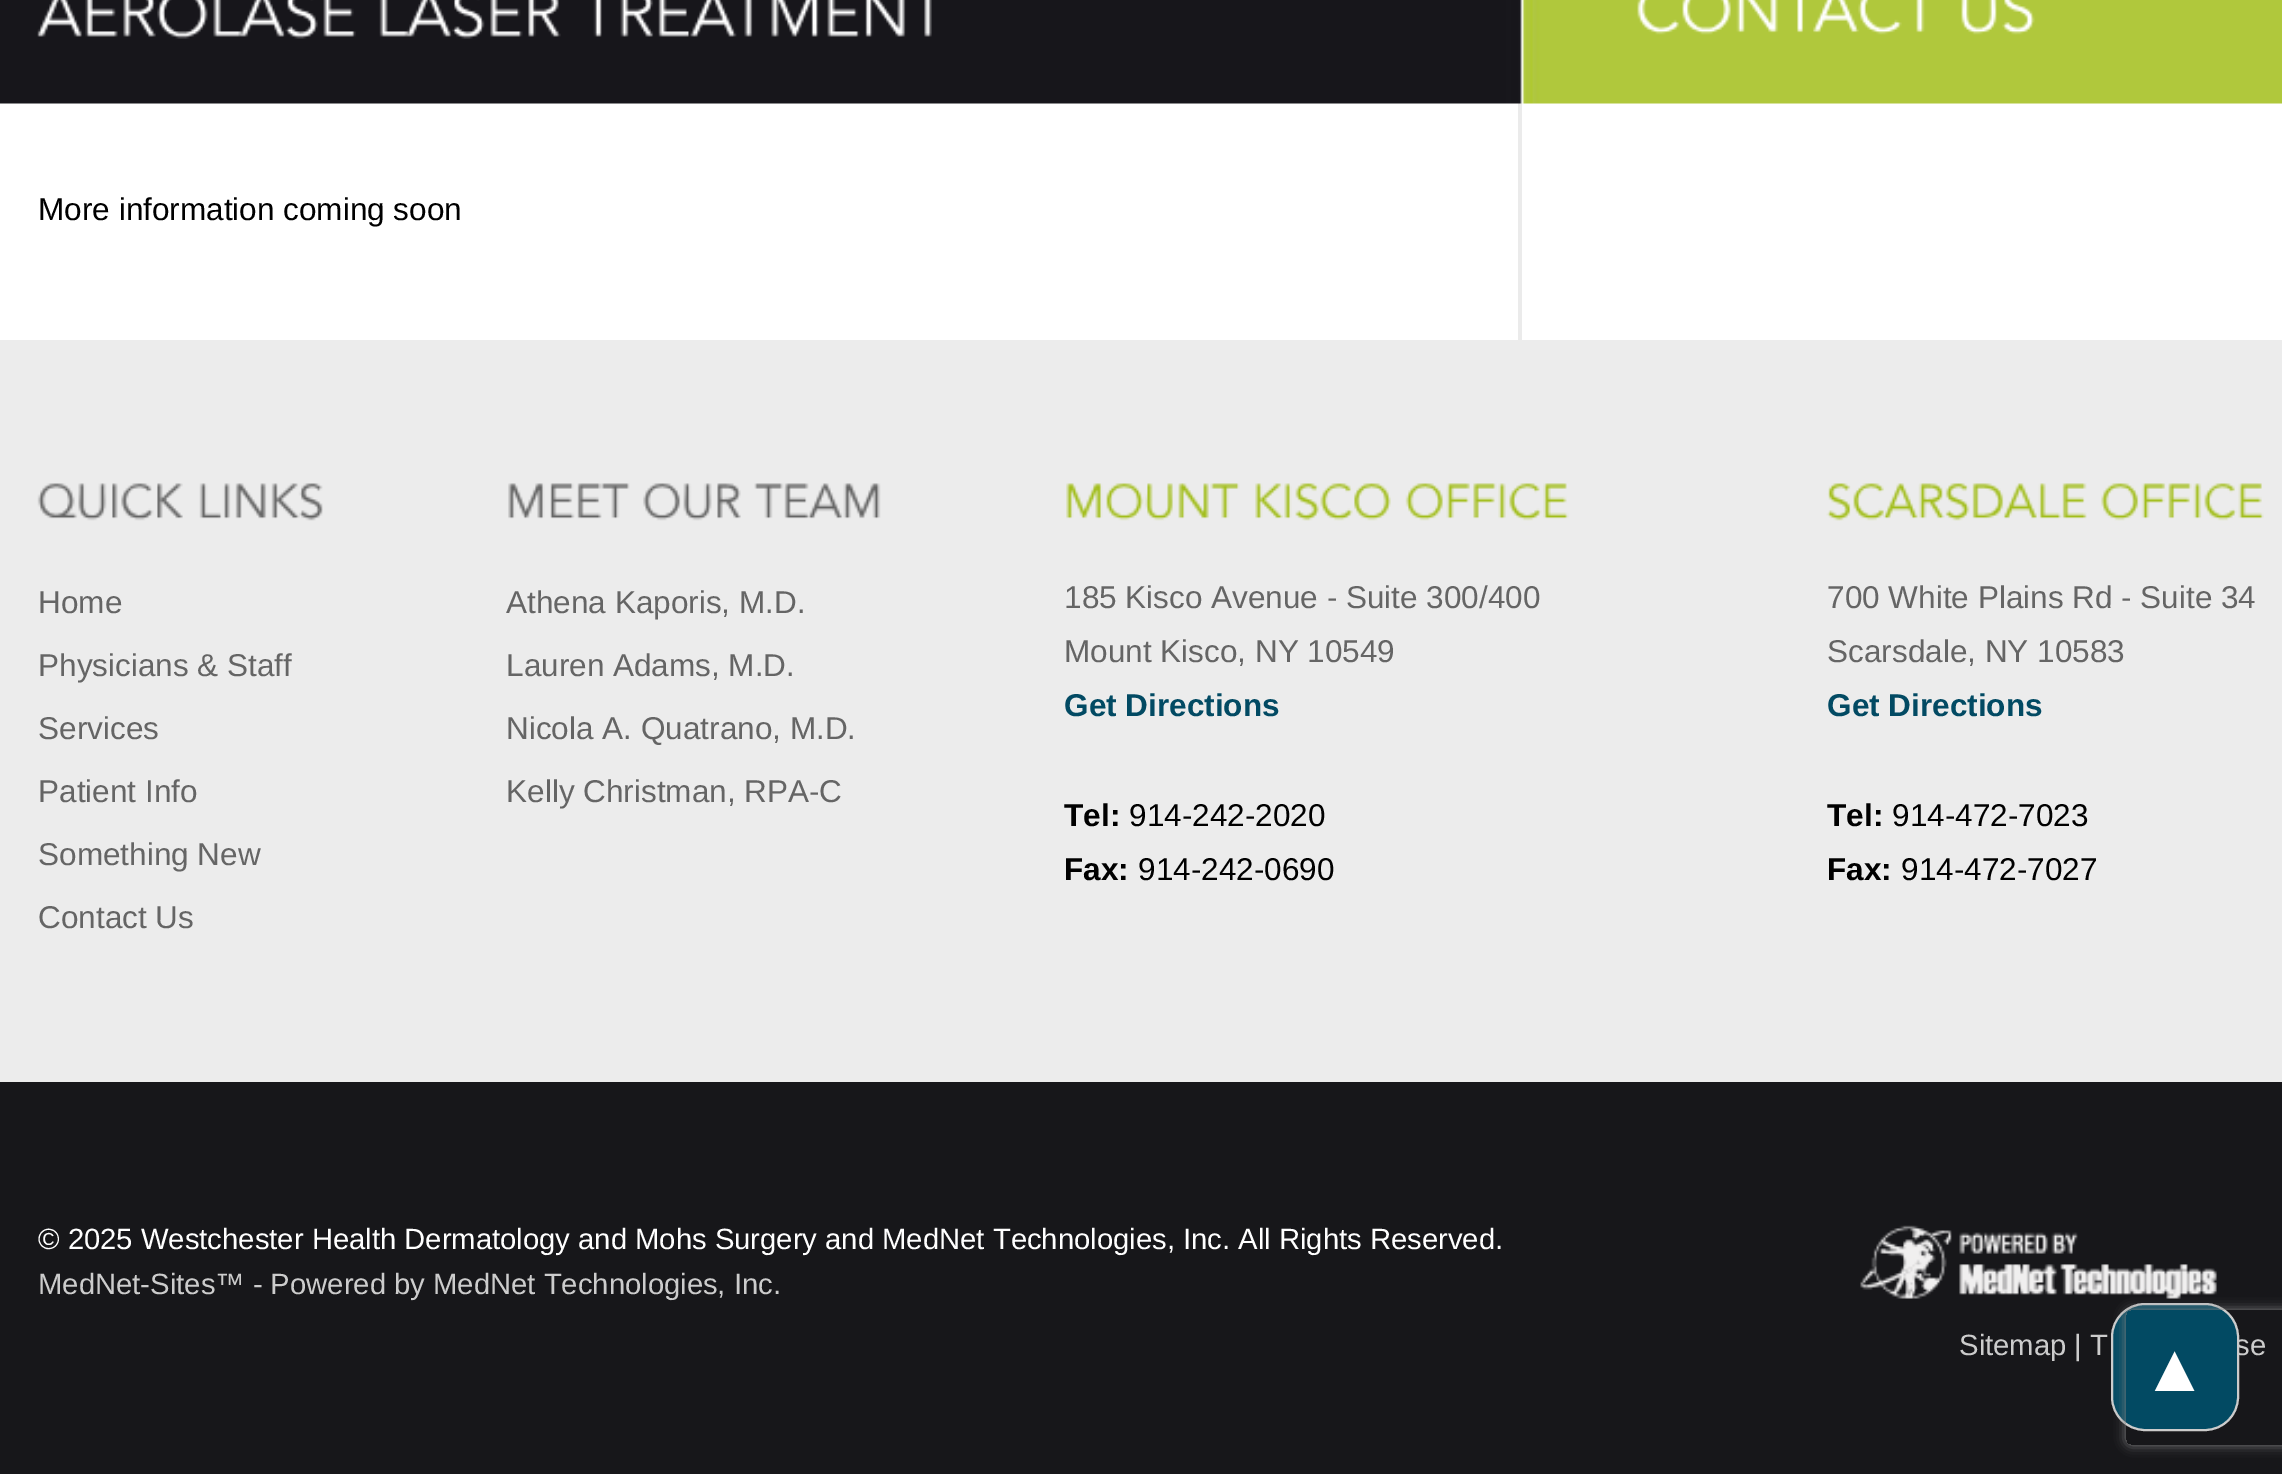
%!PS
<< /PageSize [2282 1474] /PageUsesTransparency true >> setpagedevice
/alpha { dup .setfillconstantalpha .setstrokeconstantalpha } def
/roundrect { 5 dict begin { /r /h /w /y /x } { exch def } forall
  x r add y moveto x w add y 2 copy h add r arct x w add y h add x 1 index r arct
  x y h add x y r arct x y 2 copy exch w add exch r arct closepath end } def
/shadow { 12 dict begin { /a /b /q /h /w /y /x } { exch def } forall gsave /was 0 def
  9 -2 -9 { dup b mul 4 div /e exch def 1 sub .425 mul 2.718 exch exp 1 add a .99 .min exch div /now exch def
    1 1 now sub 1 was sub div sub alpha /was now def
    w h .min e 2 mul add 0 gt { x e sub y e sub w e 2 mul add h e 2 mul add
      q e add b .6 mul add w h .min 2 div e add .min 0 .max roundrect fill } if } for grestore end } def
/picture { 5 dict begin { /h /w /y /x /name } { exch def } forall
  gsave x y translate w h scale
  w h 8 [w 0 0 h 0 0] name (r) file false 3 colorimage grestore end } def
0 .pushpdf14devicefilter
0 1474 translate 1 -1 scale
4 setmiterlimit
1 setgray
0 0 2282 1474 rectfill
0.922 setgray
1518 103 4 237 rectfill
(img1.rgb) 0 0 2282 104 picture
(img2.rgb) 1637 0 288 35 picture
(img3.rgb) 1961 0 74 35 picture
(img4.rgb) 37 0 319 39 picture
(img5.rgb) 379 0 182 39 picture
(img6.rgb) 593 0 339 37 picture
/LiberationSans-Regular [31.5 0 0 -31.5 0 0] selectfont
0 setgray
38 220 moveto (More information coming soon) show
0.925 setgray
0 340 2282 742 rectfill
(img7.rgb) 37 483 146 38 picture
(img8.rgb) 199 483 124 38 picture
0.396 setgray
38 613 moveto (Home) show
38 676 moveto (Physicians & Staff) show
38 739 moveto (Services) show
38 802 moveto (Patient Info) show
38 865 moveto (Something New) show
38 928 moveto (Contact Us) show
(img9.rgb) 508 483 122 36 picture
(img10.rgb) 643 483 98 38 picture
(img11.rgb) 754 483 127 36 picture
506 613 moveto (Athena Kaporis, M.D.) show
506 676 moveto (Lauren Adams, M.D.) show
506 739 moveto (Nicola A. Quatrano, M.D.) show
506 802 moveto (Kelly Christman, RPA-C) show
(img12.rgb) 1066 483 174 38 picture
(img13.rgb) 1255 483 136 38 picture
(img14.rgb) 1405 483 164 38 picture
1064 608 moveto (185 Kisco Avenue - Suite 300/400) show
1064 662 moveto (Mount Kisco, NY 10549) show
/LiberationSans-Bold [31.5 0 0 -31.5 0 0] selectfont
0.008 0.29 0.388 setrgbcolor
1064 716 moveto (Get Directions) show
0 setgray
1064 826 moveto (Tel:) show
/LiberationSans-Regular [31.5 0 0 -31.5 0 0] selectfont
1129 826 moveto (914-242-2020) show
/LiberationSans-Bold [31.5 0 0 -31.5 0 0] selectfont
1064 880 moveto (Fax:) show
/LiberationSans-Regular [31.5 0 0 -31.5 0 0] selectfont
1138 880 moveto (914-242-0690) show
(img15.rgb) 1826 483 261 38 picture
(img16.rgb) 2101 483 163 38 picture
0.396 setgray
1827 608 moveto (700 White Plains Rd - Suite 34) show
1827 662 moveto (Scarsdale, NY 10583) show
/LiberationSans-Bold [31.5 0 0 -31.5 0 0] selectfont
0.008 0.29 0.388 setrgbcolor
1827 716 moveto (Get Directions) show
0 setgray
1827 826 moveto (Tel:) show
/LiberationSans-Regular [31.5 0 0 -31.5 0 0] selectfont
1892 826 moveto (914-472-7023) show
/LiberationSans-Bold [31.5 0 0 -31.5 0 0] selectfont
1827 880 moveto (Fax:) show
/LiberationSans-Regular [31.5 0 0 -31.5 0 0] selectfont
1901 880 moveto (914-472-7027) show
0.09 0.09 0.102 setrgbcolor
0 1082 2282 392 rectfill
/LiberationSans-Regular [29.25 0 0 -29.25 0 0] selectfont
1 setgray
38 1249 moveto (© 2025 Westchester Health Dermatology and Mohs Surgery and MedNet Technologies, Inc. All Rights Reserved.) show
0.8 setgray
38 1294 moveto (MedNet-Sites™ - Powered by MedNet Technologies, Inc.) show
(img17.rgb) 1860 1225 357 74 picture
1959 1355 moveto (Sitemap | T) show
2235 1355 moveto (se) show
0.008 0.29 0.388 setrgbcolor
2112 1304 126 126 33 roundrect gsave fill grestore
0.8 setgray
2 setlinewidth
stroke
gsave
newpath 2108 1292 moveto 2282 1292 lineto 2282 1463 lineto 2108 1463 lineto closepath 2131 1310 moveto 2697 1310 lineto 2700 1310 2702 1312 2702 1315 curveto 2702 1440 lineto 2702 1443 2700 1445 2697 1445 curveto 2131 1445 lineto 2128 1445 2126 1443 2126 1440 curveto 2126 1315 lineto 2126 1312 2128 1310 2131 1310 curveto closepath eoclip newpath
0.502 setgray
2126 1310 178 135 5 5.5 1 shadow
grestore
/LiberationSans-Bold [68 0 0 -68 0 0] selectfont
1 setgray
2141 1391 moveto (▲) show
.poppdf14devicefilter showpage
